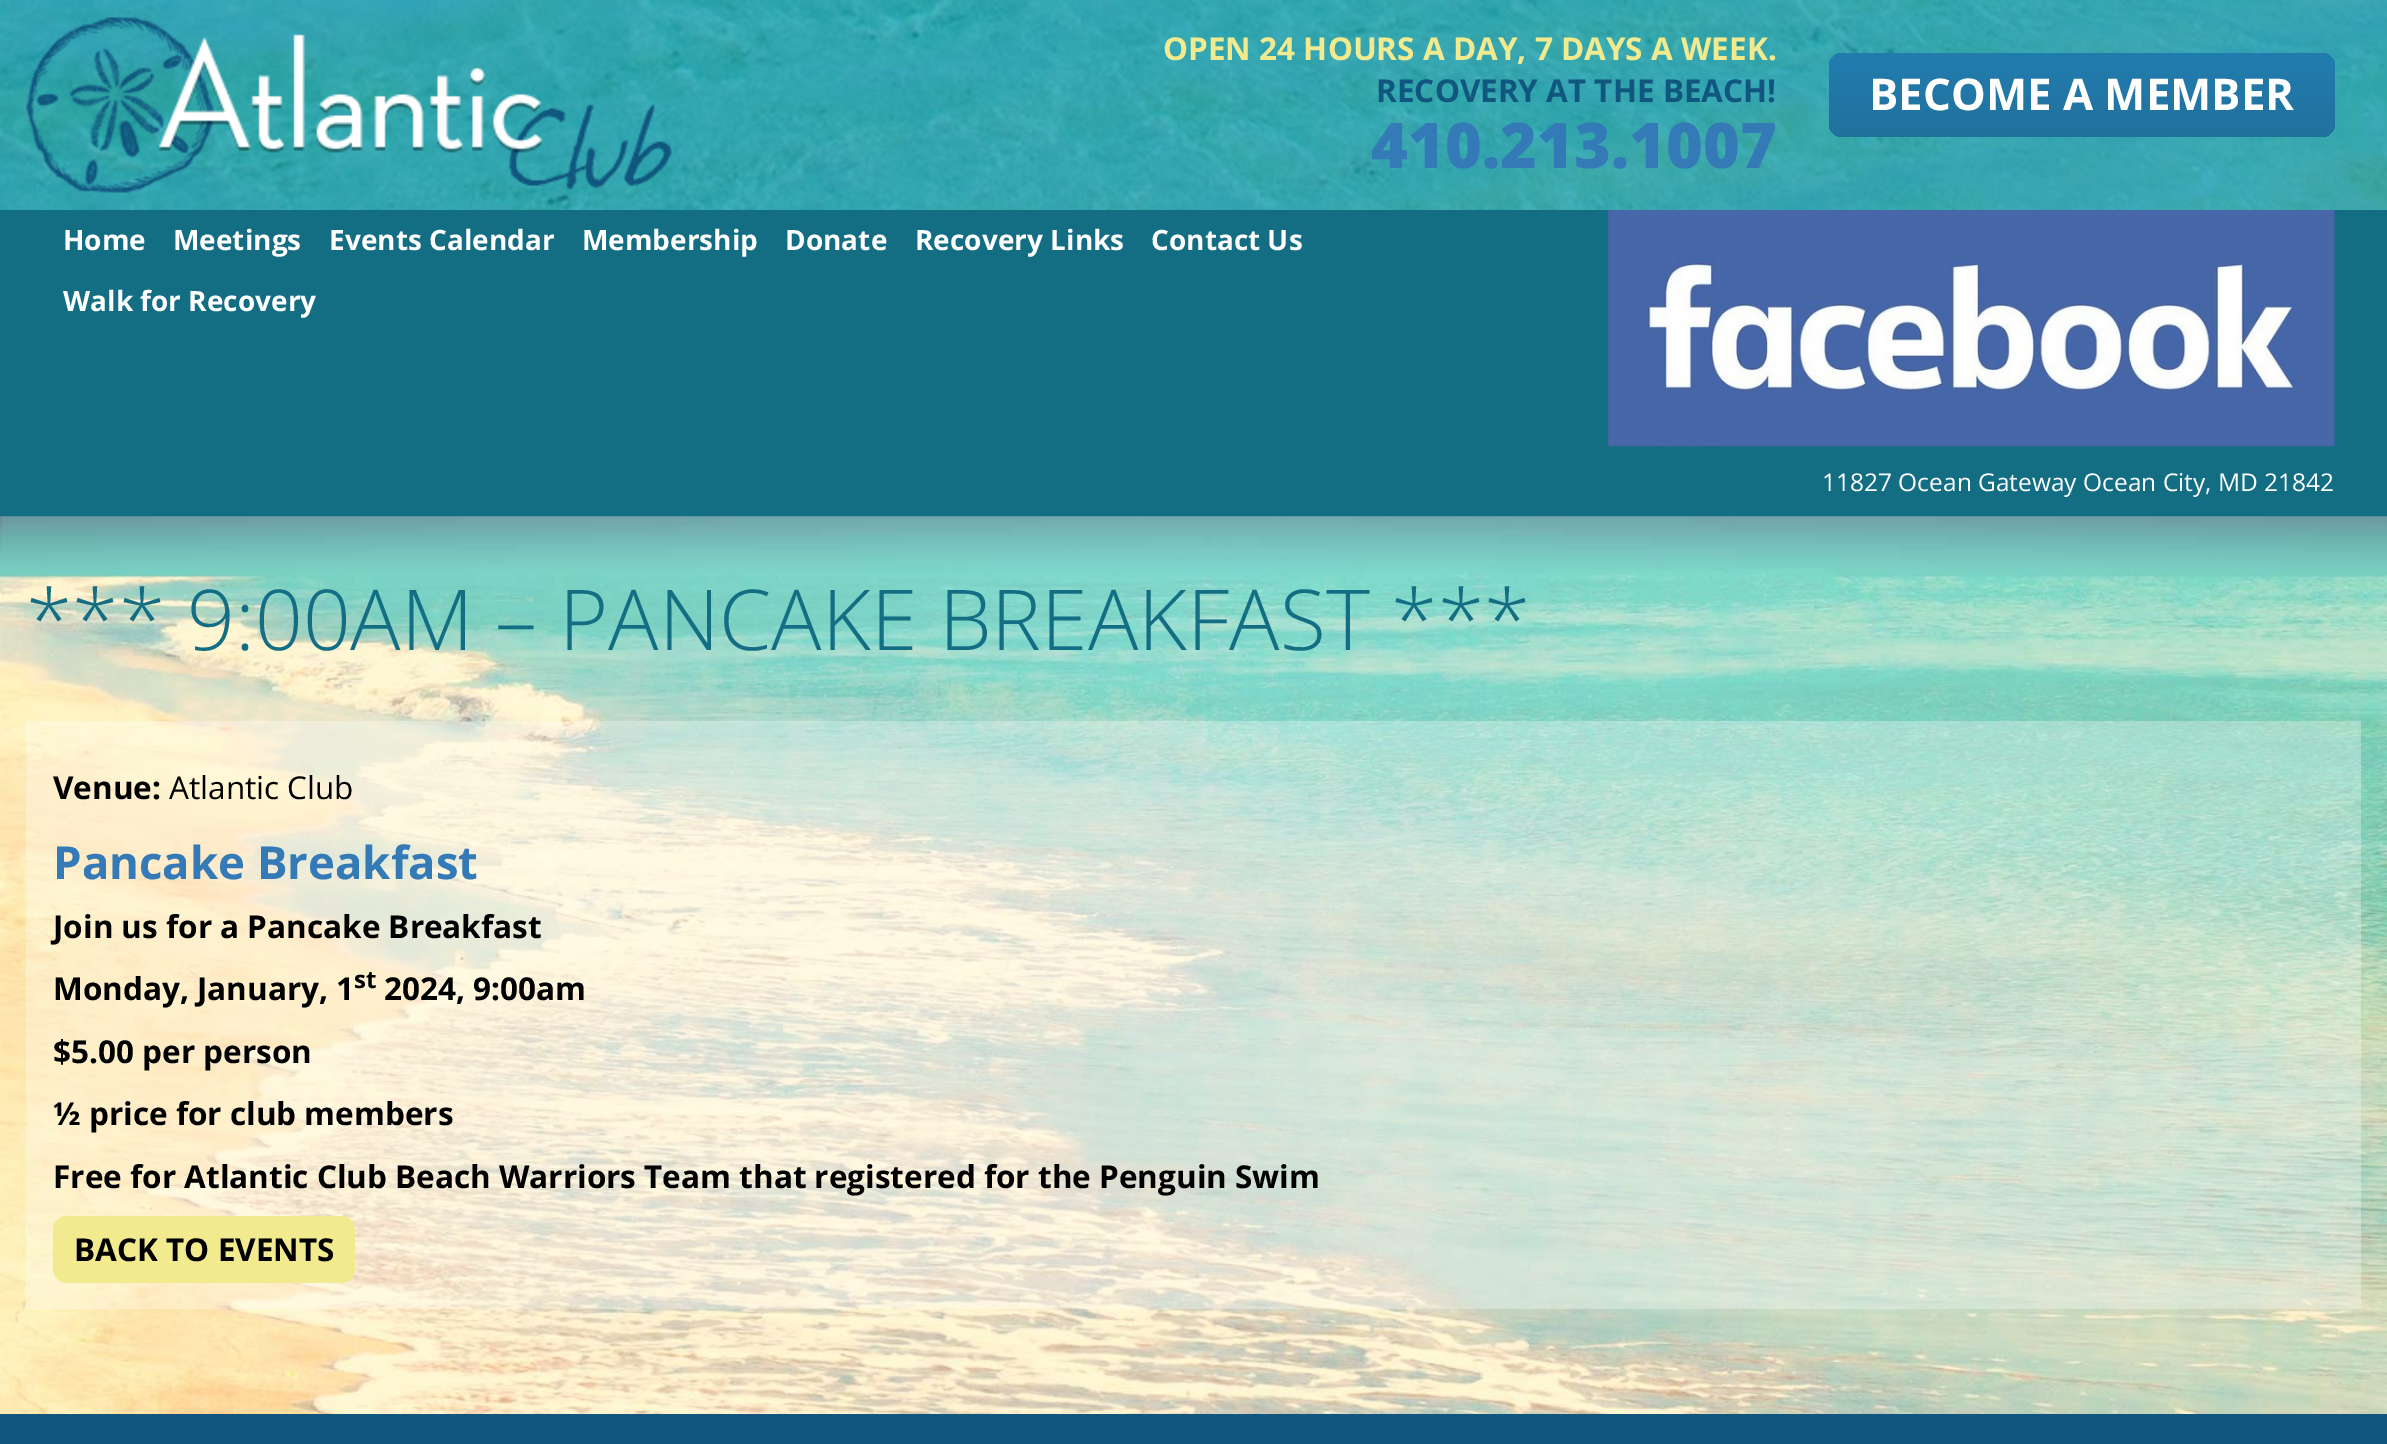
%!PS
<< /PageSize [2387 1444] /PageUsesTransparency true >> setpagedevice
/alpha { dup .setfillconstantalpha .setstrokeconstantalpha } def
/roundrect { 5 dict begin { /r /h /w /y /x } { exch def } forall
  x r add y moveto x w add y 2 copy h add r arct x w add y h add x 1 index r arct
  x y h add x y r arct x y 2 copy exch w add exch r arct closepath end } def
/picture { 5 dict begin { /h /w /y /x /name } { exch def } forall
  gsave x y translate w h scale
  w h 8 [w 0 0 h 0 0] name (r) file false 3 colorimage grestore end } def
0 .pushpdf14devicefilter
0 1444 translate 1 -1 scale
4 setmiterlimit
0.063 0.337 0.494 setrgbcolor
0 0 2387 1444 rectfill
(img1.rgb) 0 0 2387 517 picture
(img2.rgb) 26 17 646 176 picture
/OpenSans-Bold [31.5 0 0 -31.5 0 0] selectfont
0.949 0.918 0.561 setrgbcolor
1163 60 moveto (OPEN 24 HOURS A DAY, 7 DAYS A WEEK.) show
0.063 0.337 0.494 setrgbcolor
1376 102 moveto (RECOVERY AT THE BEACH!) show
/OpenSans-ExtraBold [63 0 0 -63 0 0] selectfont
0.2 0.478 0.718 setrgbcolor
1371 168 moveto (410.213.1007) show
gsave 1829 53 506 84 14 roundrect clip newpath
<< /ShadingType 2 /ColorSpace /DeviceRGB /Coords [2082 52 2082 137] /Extend [true true] /Function << /FunctionType 2 /Domain [0 1] /C0 [0.133 0.49 0.686] /C1 [0.129 0.443 0.616] /N 1 >> >> shfill grestore
/OpenSans-Bold [43.75 0 0 -43.75 0 0] selectfont
1 setgray
1869 110 moveto (BECOME A MEMBER) show
0.075 0.431 0.514 setrgbcolor
0 210 2387 306 rectfill
/OpenSans-Bold [28 0 0 -28 0 0] selectfont
1 setgray
63 250 moveto (Home) show
173 250 moveto (Meetings) show
329 250 moveto (Events Calendar) show
582 250 moveto (Membership) show
785 250 moveto (Donate) show
915 250 moveto (Recovery Links) show
1151 250 moveto (Contact Us) show
63 311 moveto (Walk for Recovery) show
(img3.rgb) 1608 210 727 237 picture
/OpenSans-Regular [24.5 0 0 -24.5 0 0] selectfont
1822 491 moveto (11827 Ocean Gateway Ocean City, MD 21842) show
(img4.rgb) 0 516 2387 898 picture
/OpenSans-Light [84 0 0 -84 0 0] selectfont
0.075 0.431 0.514 setrgbcolor
26 650 moveto (*** 9:00AM – PANCAKE BREAKFAST ***) show
0.3 alpha
1 setgray
26 721 2335 588 rectfill
/OpenSans-Bold [31.5 0 0 -31.5 0 0] selectfont
1 alpha
0 setgray
53 799 moveto (Venue:) show
/OpenSans-Regular [31.5 0 0 -31.5 0 0] selectfont
169 799 moveto (Atlantic Club) show
/OpenSans-Bold [45.5 0 0 -45.5 0 0] selectfont
0.2 0.478 0.718 setrgbcolor
53 879 moveto (Pancake Breakfast) show
/OpenSans-Bold [31.5 0 0 -31.5 0 0] selectfont
0 setgray
53 938 moveto (Join us for a Pancake Breakfast) show
53 1000 moveto (Monday, January, 1) show
/OpenSans-Bold [24 0 0 -24 0 0] selectfont
354 988 moveto (st) show
/OpenSans-Bold [31.5 0 0 -31.5 0 0] selectfont
384 1000 moveto (2024, 9:00am) show
53 1063 moveto ($5.00 per person) show
53 1125 moveto (½ price for club members) show
53 1188 moveto (Free for Atlantic Club Beach Warriors Team that registered for the Penguin Swim) show
0.949 0.918 0.561 setrgbcolor
53 1216 302 67 14 roundrect fill
0 setgray
74 1261 moveto (BACK TO EVENTS) show
.poppdf14devicefilter showpage
